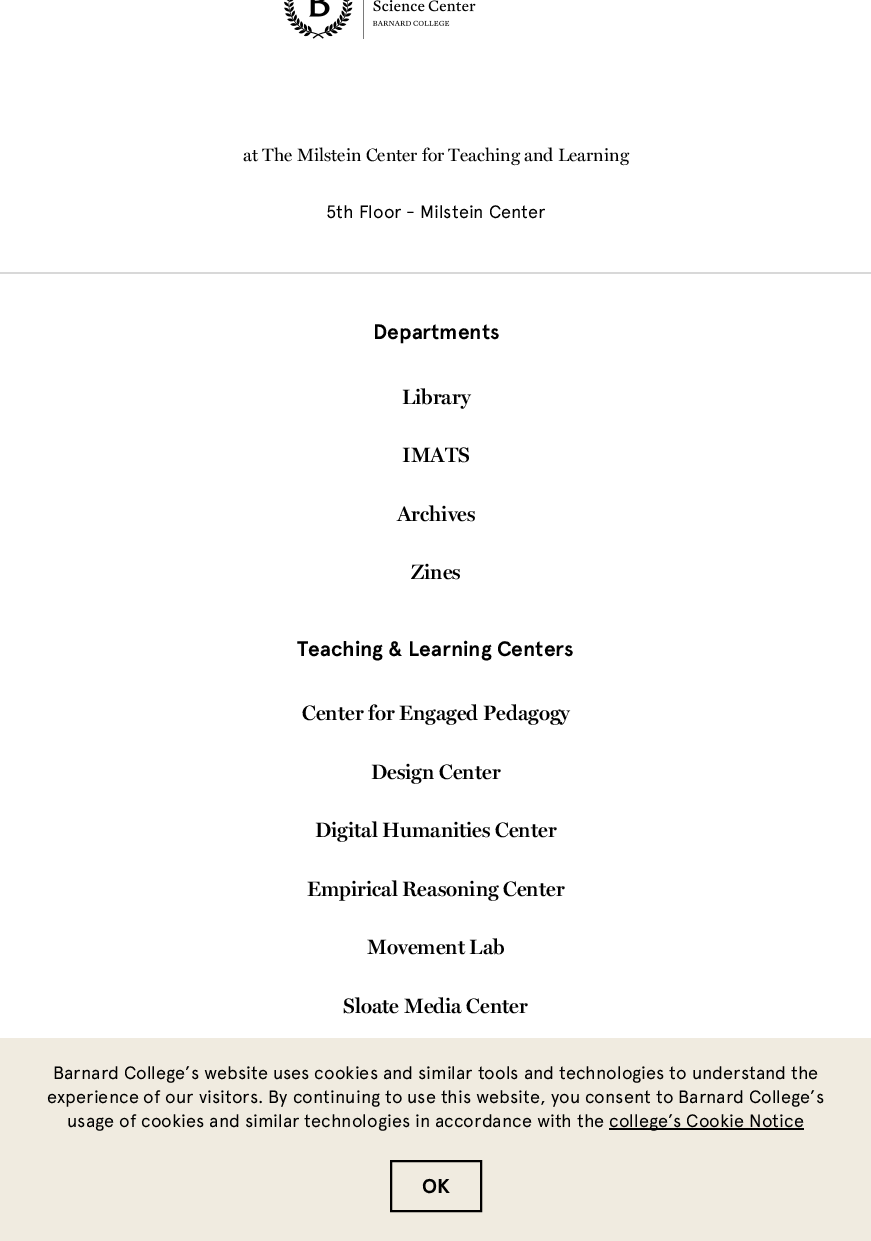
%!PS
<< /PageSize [871 1241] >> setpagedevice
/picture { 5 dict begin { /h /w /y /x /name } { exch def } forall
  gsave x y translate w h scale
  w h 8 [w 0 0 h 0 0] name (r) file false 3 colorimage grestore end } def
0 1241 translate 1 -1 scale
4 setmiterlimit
1 setgray
0 0 871 1241 rectfill
(img1.rgb) 284 0 192 39 picture
/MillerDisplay-Regular [18 0 0 -18 0 0] selectfont
0 setgray
243 161 moveto (at The Milstein Center for Teaching and Learning) show
/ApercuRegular-Regular [18 0 0 -18 0 0] selectfont
326 218 moveto (5th Floor - Milstein Center) show
0.847 setgray
0 272 871 2 rectfill
/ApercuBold-Bold [21 0 0 -21 0 0] selectfont
0 setgray
373 339 moveto (Departments) show
/MillerDisplay-SemiBold [21 0 0 -21 0 0] selectfont
402 404 moveto (Library) show
402 462 moveto (IMATS) show
397 521 moveto (Archives) show
411 579 moveto (Zines) show
/ApercuBold-Bold [21 0 0 -21 0 0] selectfont
297 656 moveto (Teaching & Learning Centers) show
/MillerDisplay-SemiBold [21 0 0 -21 0 0] selectfont
302 720 moveto (Center for Engaged Pedagogy) show
371 779 moveto (Design Center) show
315 837 moveto (Digital Humanities Center) show
307 896 moveto (Empirical Reasoning Center) show
367 954 moveto (Movement Lab) show
343 1013 moveto (Sloate Media Center) show
0.941 0.922 0.878 setrgbcolor
0 1038 871 203 rectfill
/ApercuRegular-Regular [18 0 0 -18 0 0] selectfont
0 setgray
53 1079 moveto (Barnard College’s website uses cookies and similar tools and technologies to understand the) show
47 1103 moveto (experience of our visitors. By continuing to use this website, you consent to Barnard College’s) show
67 1127 moveto (usage of cookies and similar technologies in accordance with the) show
609 1128 195 2 rectfill
609 1127 moveto (college’s Cookie Notice) show
2 setlinewidth
391 1161 90 50 rectstroke
/ApercuBold-Bold [20 0 0 -20 0 0] selectfont
422 1193 moveto (OK) show
showpage
